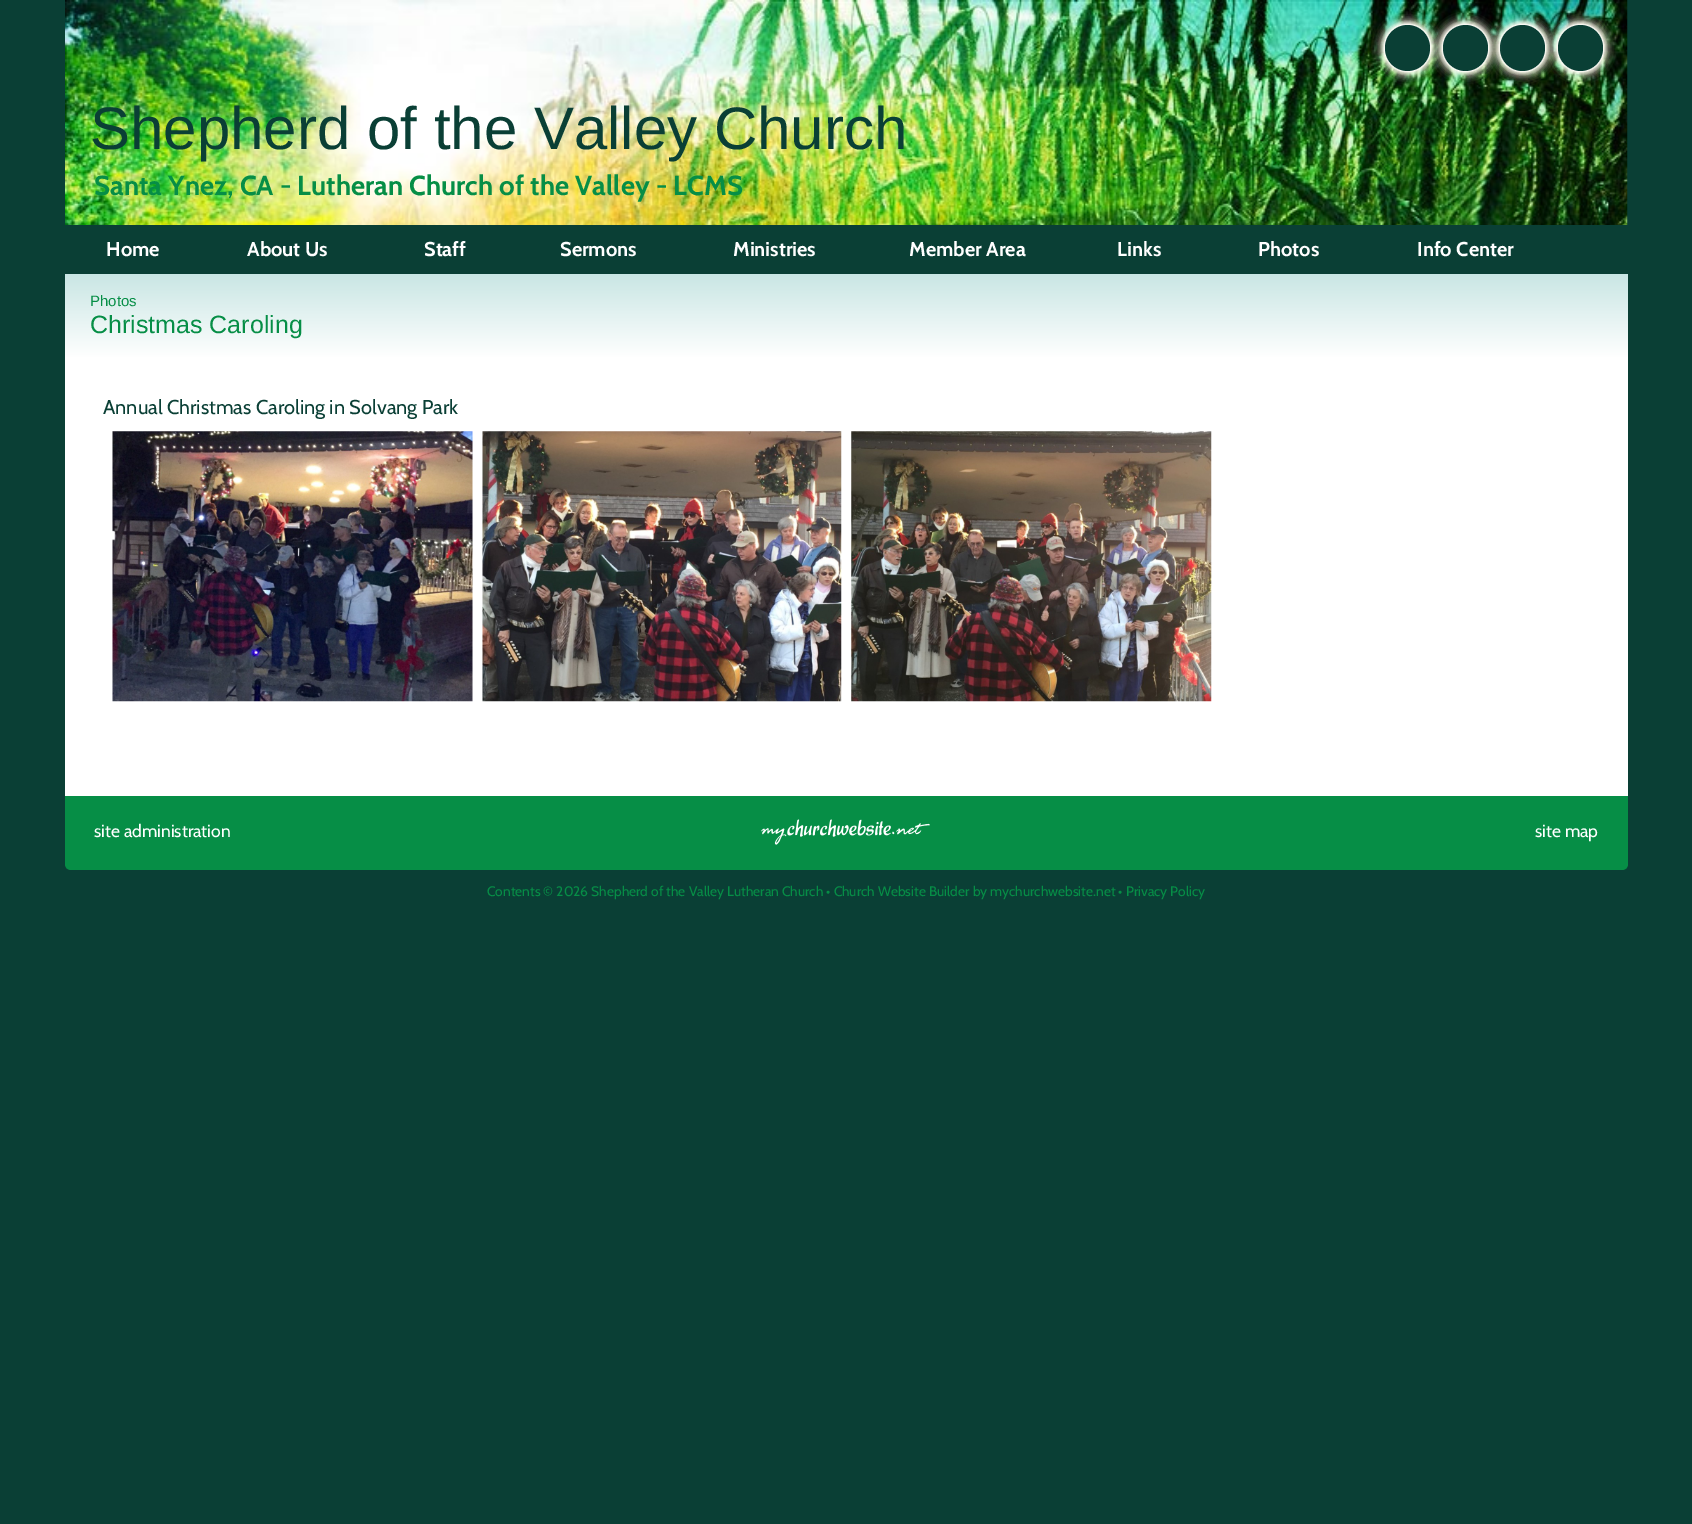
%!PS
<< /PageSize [1692 1524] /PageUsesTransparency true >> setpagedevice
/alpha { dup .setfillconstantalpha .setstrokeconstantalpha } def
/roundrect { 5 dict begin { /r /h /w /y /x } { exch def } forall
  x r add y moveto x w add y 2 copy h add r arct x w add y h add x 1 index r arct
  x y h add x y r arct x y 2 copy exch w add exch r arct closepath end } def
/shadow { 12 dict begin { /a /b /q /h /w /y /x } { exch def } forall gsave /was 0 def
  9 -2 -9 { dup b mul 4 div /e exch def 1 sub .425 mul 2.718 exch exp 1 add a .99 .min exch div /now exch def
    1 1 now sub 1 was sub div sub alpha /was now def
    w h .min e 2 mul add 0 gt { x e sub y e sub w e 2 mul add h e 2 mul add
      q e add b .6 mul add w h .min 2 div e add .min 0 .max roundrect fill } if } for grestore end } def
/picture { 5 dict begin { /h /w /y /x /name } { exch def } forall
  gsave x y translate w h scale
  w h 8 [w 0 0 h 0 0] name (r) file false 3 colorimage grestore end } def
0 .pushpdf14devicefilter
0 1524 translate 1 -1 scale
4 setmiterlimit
0.039 0.247 0.208 setrgbcolor
0 0 1692 1524 rectfill
(img1.rgb) 65 0 1563 225 picture
0.996 0.976 0.918 setrgbcolor
1558 25 45 46 22.5 6 1 shadow
1558 25 45 46 22.5 5 1 shadow
1558 25 45 46 22.5 4 1 shadow
1558 25 45 46 22.5 2.5 1 shadow
1 setgray
1558 25 45 46 22.5 2 1 shadow
1558 25 45 46 22.5 1 1 shadow
0.039 0.247 0.208 setrgbcolor
1558 25 45 46 22.5 roundrect fill
0.996 0.976 0.918 setrgbcolor
1500 25 45 46 22.5 6 1 shadow
1500 25 45 46 22.5 5 1 shadow
1500 25 45 46 22.5 4 1 shadow
1500 25 45 46 22.5 2.5 1 shadow
1 setgray
1500 25 45 46 22.5 2 1 shadow
1500 25 45 46 22.5 1 1 shadow
0.039 0.247 0.208 setrgbcolor
1500 25 45 46 22.5 roundrect fill
0.996 0.976 0.918 setrgbcolor
1443 25 45 46 22.5 6 1 shadow
1443 25 45 46 22.5 5 1 shadow
1443 25 45 46 22.5 4 1 shadow
1443 25 45 46 22.5 2.5 1 shadow
1 setgray
1443 25 45 46 22.5 2 1 shadow
1443 25 45 46 22.5 1 1 shadow
0.039 0.247 0.208 setrgbcolor
1443 25 45 46 22.5 roundrect fill
0.996 0.976 0.918 setrgbcolor
1385 25 45 46 22.5 6 1 shadow
1385 25 45 46 22.5 5 1 shadow
1385 25 45 46 22.5 4 1 shadow
1385 25 45 46 22.5 2.5 1 shadow
1 setgray
1385 25 45 46 22.5 2 1 shadow
1385 25 45 46 22.5 1 1 shadow
0.039 0.247 0.208 setrgbcolor
1385 25 45 46 22.5 roundrect fill
/LiberationSans-Regular [60 0 0 -60 0 0] selectfont
90 149 moveto (Shepherd of the Valley Church) show
/Cabin-Bold [27.5 0 0 -27.5 0 0] selectfont
0.024 0.557 0.275 setrgbcolor
94 195 moveto (Santa Ynez, CA - Lutheran Church of the Valley - LCMS) show
/Cabin-Bold [20 0 0 -20 0 0] selectfont
1 setgray
106 256 moveto (Home) show
247 256 moveto (About Us) show
424 256 moveto (Staff) show
560 256 moveto (Sermons) show
733 256 moveto (Ministries) show
909 256 moveto (Member Area) show
1117 256 moveto (Links) show
1258 256 moveto (Photos) show
1417 256 moveto (Info Center) show
65 358 1563 438 rectfill
gsave newpath 65 274 moveto 1628 274 lineto 1628 358 lineto 65 358 lineto closepath clip newpath
<< /ShadingType 2 /ColorSpace /DeviceRGB /Coords [846 274 846 358] /Extend [true true] /Function << /FunctionType 2 /Domain [0 1] /C0 [0.788 0.902 0.894] /C1 [1 1 1] /N 1 >> >> shfill grestore
/LiberationSans-Regular [15 0 0 -15 0 0] selectfont
0.024 0.557 0.275 setrgbcolor
90 306 moveto (Photos) show
/LiberationSans-Regular [25 0 0 -25 0 0] selectfont
90 333 moveto (Christmas Caroling) show
/Cabin-Regular [20 0 0 -20 0 0] selectfont
0.039 0.247 0.208 setrgbcolor
103 414 moveto (Annual Christmas Caroling in Solvang Park) show
(img2.rgb) 112 431 361 271 picture
(img3.rgb) 482 431 360 271 picture
(img4.rgb) 851 431 361 271 picture
0.024 0.557 0.275 setrgbcolor
newpath 65 796 moveto 1628 796 lineto 1628 864 lineto 1628 867.5 1625.5 870 1622 870 curveto 71 870 lineto 67.5 870 65 867.5 65 864 curveto closepath fill
/Cabin-Regular [17.5 0 0 -17.5 0 0] selectfont
1 setgray
94 837 moveto (site administration) show
(img5.rgb) 761 819 169 26 picture
1535 837 moveto (site map) show
/Cabin-Regular [13.75 0 0 -13.75 0 0] selectfont
0.024 0.557 0.275 setrgbcolor
487 896 moveto (Contents © 2026 Shepherd of the Valley Lutheran Church • Church Website Builder by mychurchwebsite.net • Privacy Policy) show
.poppdf14devicefilter showpage
